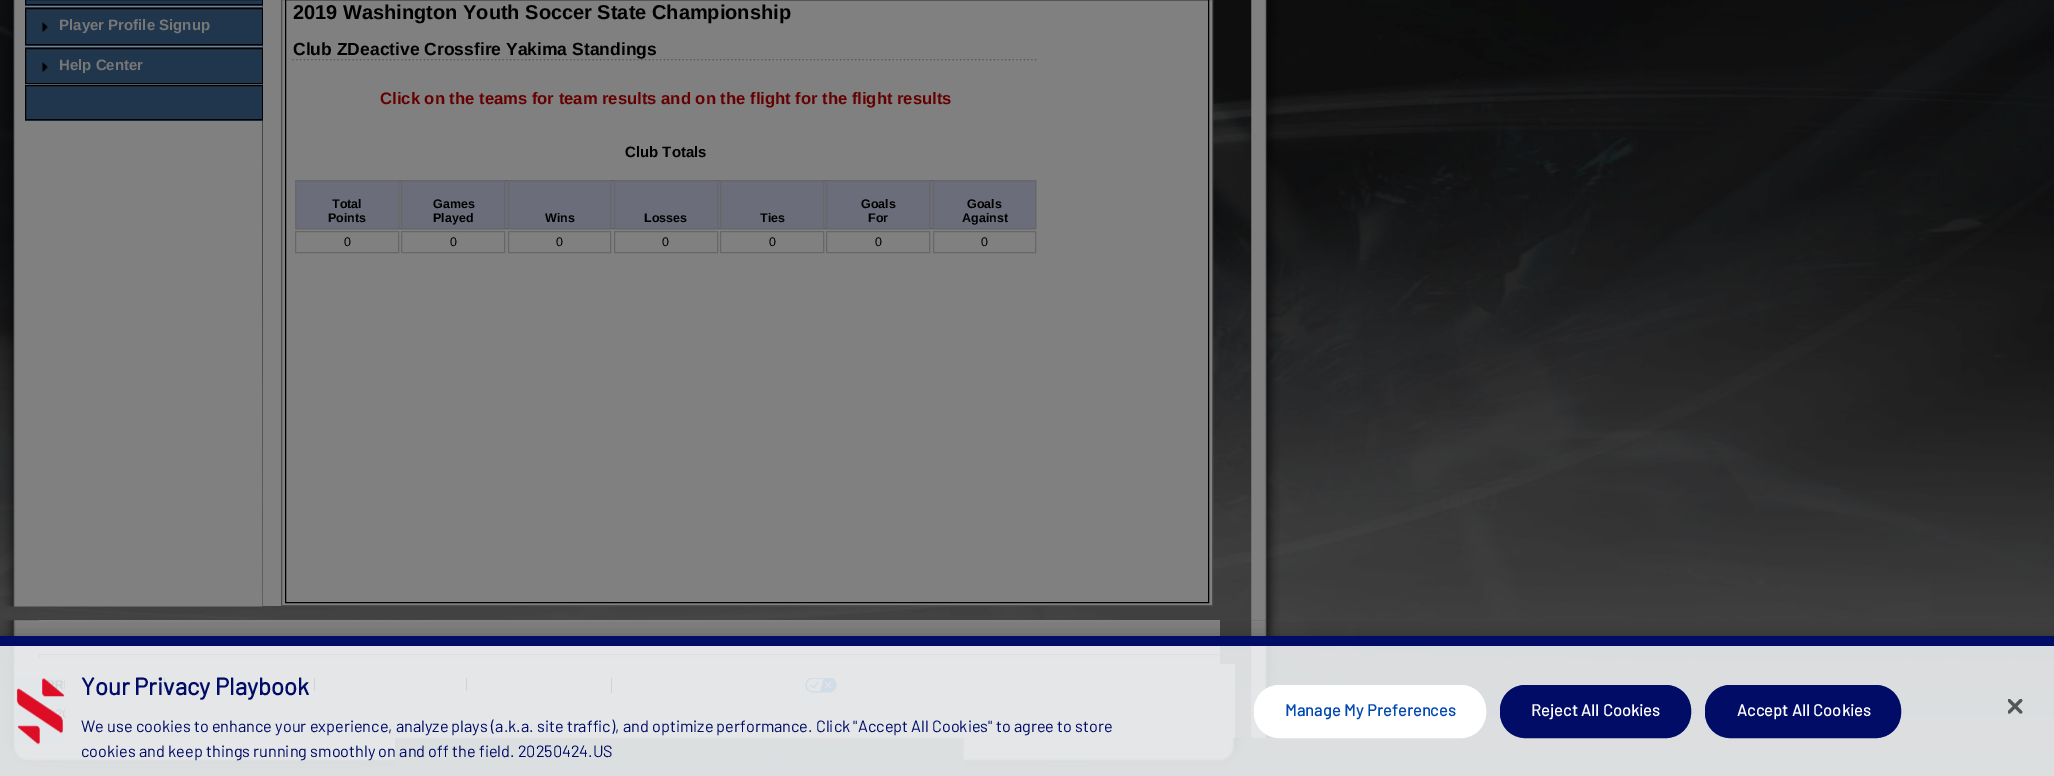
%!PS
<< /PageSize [2054 776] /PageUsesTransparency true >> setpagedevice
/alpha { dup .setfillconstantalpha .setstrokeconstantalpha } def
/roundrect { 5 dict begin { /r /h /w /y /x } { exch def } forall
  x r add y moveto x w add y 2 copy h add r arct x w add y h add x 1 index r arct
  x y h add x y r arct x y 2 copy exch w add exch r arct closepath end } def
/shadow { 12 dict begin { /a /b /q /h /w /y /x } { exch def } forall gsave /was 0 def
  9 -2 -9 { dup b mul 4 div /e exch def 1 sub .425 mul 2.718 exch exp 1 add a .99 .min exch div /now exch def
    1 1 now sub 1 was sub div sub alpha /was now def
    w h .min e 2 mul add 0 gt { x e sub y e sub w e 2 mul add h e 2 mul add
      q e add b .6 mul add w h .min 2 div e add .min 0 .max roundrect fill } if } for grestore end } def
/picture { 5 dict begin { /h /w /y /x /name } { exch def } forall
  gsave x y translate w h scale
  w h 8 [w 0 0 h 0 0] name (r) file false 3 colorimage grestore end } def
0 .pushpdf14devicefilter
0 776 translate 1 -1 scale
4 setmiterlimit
1 setgray
0 0 2054 776 rectfill
(img1.rgb) 0 0 2054 776 picture
(img2.rgb) 3 0 260 607 picture
0.125 0.212 0.302 setrgbcolor
25 0 238 6 rectfill
0.004 0.008 0.016 setrgbcolor
25.5 -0.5 237 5 rectstroke
0.125 0.212 0.302 setrgbcolor
25 7 238 39 rectfill
0.004 0.008 0.016 setrgbcolor
25.5 8.5 237 36 rectstroke
(img3.rgb) 42 22 6 10 picture
/LiberationSans-Bold [15 0 0 -15 0 0] selectfont
0.467 setgray
59 30 moveto (Player Profile Signup) show
0.125 0.212 0.302 setrgbcolor
25 47 238 36 rectfill
0.004 0.008 0.016 setrgbcolor
25.5 48.5 237 35 rectstroke
(img3.rgb) 42 62 6 10 picture
0.467 setgray
59 70 moveto (Help Center) show
0.125 0.212 0.302 setrgbcolor
25 86 238 35 rectfill
0.004 0.008 0.016 setrgbcolor
25.5 85.5 237 34 rectstroke
0.502 setgray
263 0 949 606 rectfill
0.302 setgray
281.5 -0.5 931 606 rectstroke
0 setgray
285.5 -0.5 923 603 rectstroke
/LiberationSans-Bold [20 0 0 -20 0 0] selectfont
293 19 moveto (2019 Washington Youth Soccer State Championship) show
/LiberationSans-Bold [17.5 0 0 -17.5 0 0] selectfont
293 55 moveto (Club ZDeactive Crossfire Yakima Standings) show
(img4.rgb) 292 59 745 2 picture
/LiberationSans-Bold [16.65 0 0 -16.65 0 0] selectfont
0.4 0 0 setrgbcolor
380 104 moveto (Click on the teams for team results and on the flight for the flight results) show
/LiberationSans-Bold [15 0 0 -15 0 0] selectfont
0 setgray
625 157 moveto (Club Totals) show
0.42 0.427 0.478 setrgbcolor
newpath 295.5 180.5 moveto 1035.5 180.5 lineto 1035.5 228.5 lineto 295.5 228.5 lineto closepath gsave fill grestore
0.345 0.376 0.439 setrgbcolor
stroke
0.408 setgray
295.5 180.5 103 48 rectstroke
/LiberationSans-Bold [12.5 0 0 -12.5 0 0] selectfont
0 setgray
332 208 moveto (Total) show
328 222 moveto (Points) show
0.404 setgray
401.5 180.5 103 48 rectstroke
0 setgray
433 208 moveto (Games) show
433 222 moveto (Played) show
0.404 setgray
508.5 180.5 102 48 rectstroke
0 setgray
545 222 moveto (Wins) show
0.404 setgray
614.5 180.5 103 48 rectstroke
0 setgray
644 222 moveto (Losses) show
0.404 setgray
720.5 180.5 103 48 rectstroke
0 setgray
760 222 moveto (Ties) show
0.404 setgray
826.5 180.5 103 48 rectstroke
0 setgray
861 208 moveto (Goals) show
868 222 moveto (For) show
0.404 setgray
933.5 180.5 102 48 rectstroke
0 setgray
967 208 moveto (Goals) show
962 222 moveto (Against) show
0.404 setgray
295.5 231.5 103 21 rectstroke
/LiberationSans-Regular [12.5 0 0 -12.5 0 0] selectfont
0 setgray
344 246 moveto (0) show
0.404 setgray
401.5 231.5 103 21 rectstroke
0 setgray
450 246 moveto (0) show
0.404 setgray
508.5 231.5 102 21 rectstroke
0 setgray
556 246 moveto (0) show
0.404 setgray
614.5 231.5 103 21 rectstroke
0 setgray
662 246 moveto (0) show
0.404 setgray
720.5 231.5 103 21 rectstroke
0 setgray
769 246 moveto (0) show
0.404 setgray
826.5 231.5 103 21 rectstroke
0 setgray
875 246 moveto (0) show
0.404 setgray
933.5 231.5 102 21 rectstroke
0 setgray
981 246 moveto (0) show
(img5.rgb) 1251 0 29 621 picture
(img6.rgb) 3 620 36 44 picture
0.502 setgray
39 620 1181 44 rectfill
0.314 setgray
39 654 1181 1 rectfill
0.467 setgray
1219 654 1 4 rectfill
39 656 1181 1 rectfill
0.314 setgray
39 654 1 4 rectfill
(img7.rgb) 1251 620 29 44 picture
(img8.rgb) 2 664 13 74 picture
0.502 setgray
15 664 1220 74 rectfill
0 setgray
164 678 1 13 rectfill
314 678 1 13 rectfill
466 678 1 13 rectfill
611 678 1 15 rectfill
(img9.rgb) 805 678 32 15 picture
(img10.rgb) 1251 664 29 74 picture
(img11.rgb) 3 737 392 33 picture
(img12.rgb) 963 738 257 32 picture
(img13.rgb) 1220 737 27 33 picture
gsave
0 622 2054 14 rectclip
0 636 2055 140 0 11 0.2 shadow
grestore
0.85 alpha
0.961 0.973 0.98 setrgbcolor
0 646 2054 130 rectfill
1 alpha
0 0.047 0.4 setrgbcolor
0 636 2054 10 rectfill
(img14.rgb) 16 678 49 67 picture
/Barlow-Bold [24 0 0 -24 0 0] selectfont
81 695 moveto (Your Privacy Playbook) show
/Barlow-Regular [16.25 0 0 -16.25 0 0] selectfont
81 732 moveto (We use cookies to enhance your experience, analyze plays \(a.k.a. site traffic\), and optimize performance. Click "Accept All Cookies" to agree to store) show
81 757 moveto (cookies and keep things running smoothly on and off the field. 20250424.US) show
1 setgray
1254.5 685.5 231 52 24.5 roundrect gsave fill grestore
stroke
/Barlow-Bold [16.25 0 0 -16.25 0 0] selectfont
0 0.286 0.702 setrgbcolor
1285 716 moveto 0.2 0 (Manage My Preferences) ashow
0 0.047 0.4 setrgbcolor
1500.5 685.5 190 52 24.5 roundrect gsave fill grestore
stroke
1 setgray
1531 716 moveto 0.2 0 (Reject All Cookies) ashow
0 0.047 0.4 setrgbcolor
1705.5 685.5 195 52 24.5 roundrect gsave fill grestore
stroke
1 setgray
1737 716 moveto 0.2 0 (Accept All Cookies) ashow
(img15.rgb) 2008 699 15 15 picture
.poppdf14devicefilter showpage
